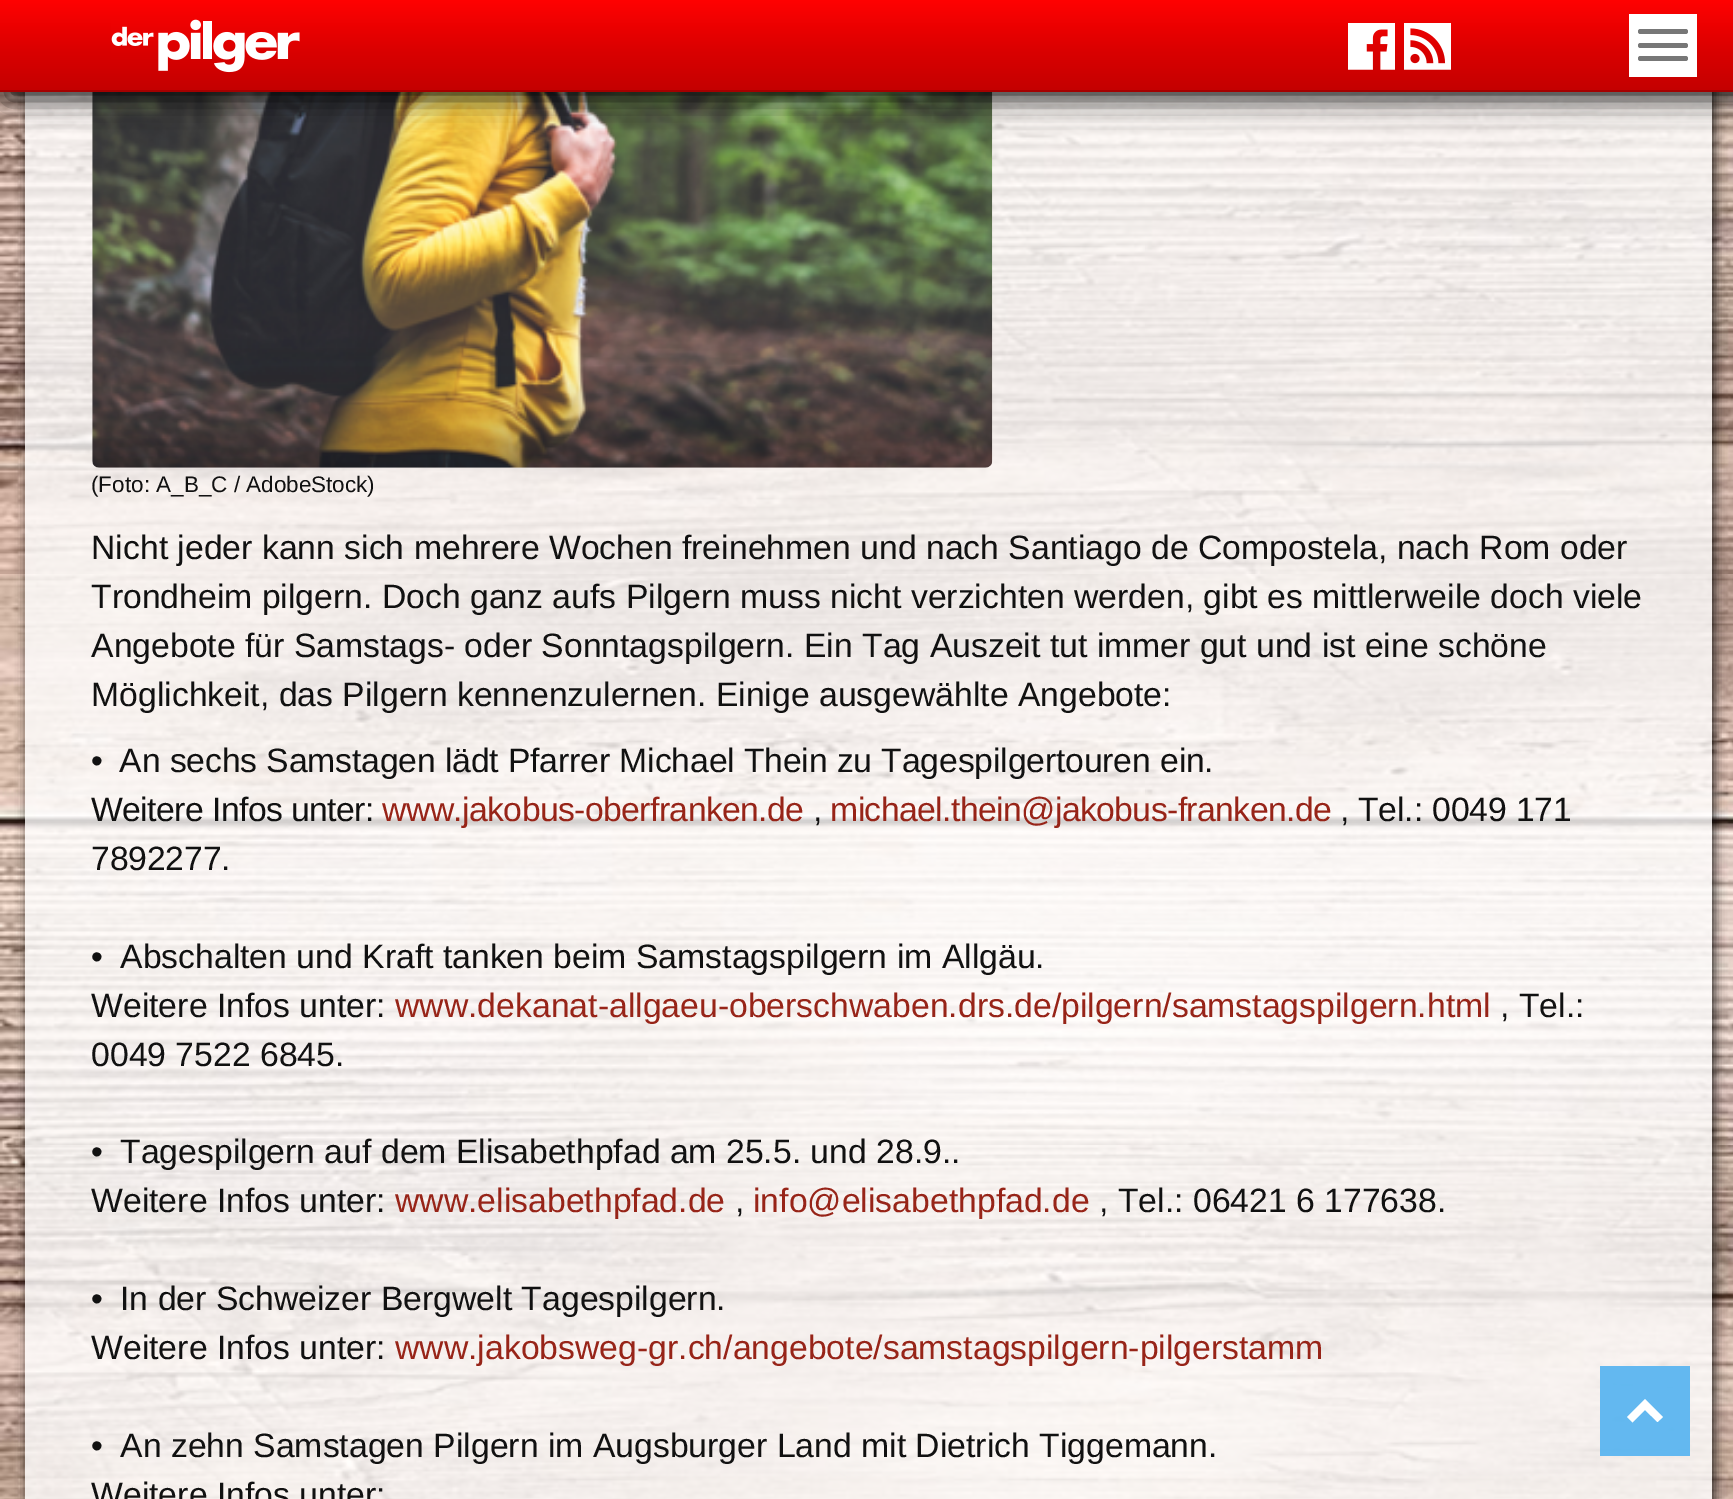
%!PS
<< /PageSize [1733 1499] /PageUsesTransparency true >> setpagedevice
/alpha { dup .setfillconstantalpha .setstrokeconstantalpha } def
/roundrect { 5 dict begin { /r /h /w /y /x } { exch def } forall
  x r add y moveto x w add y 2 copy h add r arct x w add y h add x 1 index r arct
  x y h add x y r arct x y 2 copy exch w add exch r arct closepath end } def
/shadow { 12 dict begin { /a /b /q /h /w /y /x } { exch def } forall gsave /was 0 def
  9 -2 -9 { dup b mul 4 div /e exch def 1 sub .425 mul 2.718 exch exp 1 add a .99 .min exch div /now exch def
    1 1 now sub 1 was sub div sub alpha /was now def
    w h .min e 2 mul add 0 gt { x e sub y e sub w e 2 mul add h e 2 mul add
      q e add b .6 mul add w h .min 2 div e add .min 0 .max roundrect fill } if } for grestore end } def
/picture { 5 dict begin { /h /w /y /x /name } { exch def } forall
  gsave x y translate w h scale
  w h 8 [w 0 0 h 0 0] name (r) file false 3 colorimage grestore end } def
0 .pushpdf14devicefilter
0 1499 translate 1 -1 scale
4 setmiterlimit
1 setgray
0 0 1733 1499 rectfill
(img1.rgb) 0 92 1733 1407 picture
gsave
newpath 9 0 moveto 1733 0 lineto 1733 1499 lineto 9 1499 lineto closepath 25 -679 moveto 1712 -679 lineto 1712 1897 lineto 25 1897 lineto closepath eoclip newpath
0 setgray
27 -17 1688 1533 0 5.5 0.75 shadow
grestore
(img5.rgb) 92 92 901 376 picture
0 setgray
7 7 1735 92 0 13.5 0.85 shadow
gsave newpath 0 0 moveto 1733 0 lineto 1733 90 lineto 0 90 lineto closepath clip newpath
<< /ShadingType 2 /ColorSpace /DeviceRGB /Coords [867 0 867 90] /Extend [true true] /Function << /FunctionType 3 /Domain [0 1] /Functions [<< /FunctionType 2 /Domain [0 1] /C0 [1 0.008 0.008] /C1 [0.847 0 0] /N 1 >> << /FunctionType 2 /Domain [0 1] /C0 [0.847 0 0] /C1 [0.769 0 0] /N 1 >>] /Bounds [0.6] /Encode [0 1 0 1] >> >> shfill grestore
0.647 0 0 setrgbcolor
0 90 1733 2 rectfill
(img2.rgb) 111 19 189 54 picture
1 setgray
1629 14 68 63 rectfill
0.467 setgray
1638 29 50 5 2.5 roundrect fill
1638 43 50 5 2.5 roundrect fill
1638 56 50 5 2.5 roundrect fill
(img3.rgb) 1348 23 47 47 picture
(img4.rgb) 1404 23 47 47 picture
/LiberationSans-Regular [22.5 0 0 -22.5 0 0] selectfont
0.067 setgray
91 492 moveto (\(Foto: A_B_C / AdobeStock\)) show
/LiberationSans-Regular [33.75 0 0 -33.75 0 0] selectfont
91 559 moveto (Nicht jeder kann sich mehrere Wochen freinehmen und nach Santiago de Compostela, nach Rom oder) show
91 608 moveto (Trondheim pilgern. Doch ganz aufs Pilgern muss nicht verzichten werden, gibt es mittlerweile doch viele) show
91 657 moveto (Angebote für Samstags- oder Sonntagspilgern. Ein Tag Auszeit tut immer gut und ist eine schöne) show
91 706 moveto (Möglichkeit, das Pilgern kennenzulernen. Einige ausgewählte Angebote:) show
91 772 moveto -0.15 0 (• An sechs Samstagen lädt Pfarrer Michael Thein zu Tagespilgertouren ein.) ashow
91 821 moveto -0.6 0 (Weitere Infos unter:) ashow
0.592 0.141 0.094 setrgbcolor
382 821 moveto -0.6 0 (www.jakobus-oberfranken.de) ashow
0.067 setgray
813 821 moveto -0.6 0 (,) ashow
0.592 0.141 0.094 setrgbcolor
830 821 moveto -0.6 0 (michael.thein@jakobus-franken.de) ashow
0.067 setgray
1340 821 moveto -0.6 0 (,) ashow
1358 821 moveto -0.15 0 (Tel.: 0049 171) ashow
91 870 moveto -0.15 0 (7892277.) ashow
91 968 moveto -0.15 0 (•) ashow
120 968 moveto (Abschalten und Kraft tanken beim Samstagspilgern im Allgäu.) show
91 1017 moveto (Weitere Infos unter:) show
0.592 0.141 0.094 setrgbcolor
395 1017 moveto (www.dekanat-allgaeu-oberschwaben.drs.de/pilgern/samstagspilgern.html) show
0.067 setgray
1500 1017 moveto (, Tel.:) show
91 1066 moveto (0049 7522 6845.) show
91 1163 moveto -0.15 0 (•) ashow
120 1163 moveto (Tagespilgern auf dem Elisabethpfad am 25.5. und 28.9..) show
91 1212 moveto (Weitere Infos unter:) show
0.592 0.141 0.094 setrgbcolor
395 1212 moveto (www.elisabethpfad.de) show
0.067 setgray
735 1212 moveto (,) show
0.592 0.141 0.094 setrgbcolor
753 1212 moveto (info@elisabethpfad.de) show
0.067 setgray
1099 1212 moveto (, Tel.: 06421 6 177638.) show
91 1310 moveto -0.15 0 (•) ashow
120 1310 moveto (In der Schweizer Bergwelt Tagespilgern.) show
91 1359 moveto (Weitere Infos unter:) show
0.592 0.141 0.094 setrgbcolor
395 1359 moveto (www.jakobsweg-gr.ch/angebote/samstagspilgern-pilgerstamm) show
0.067 setgray
91 1457 moveto -0.15 0 (•) ashow
120 1457 moveto (An zehn Samstagen Pilgern im Augsburger Land mit Dietrich Tiggemann.) show
91 1506 moveto (Weitere Infos unter:) show
0.95 alpha
0.357 0.71 0.941 setrgbcolor
1600 1366 90 90 rectfill
1 alpha
1 setgray
newpath 1645 1399 moveto 1663 1417 lineto 1657.5 1422 lineto 1645 1410 lineto 1632.5 1422.5 lineto 1627 1417 lineto closepath fill
.poppdf14devicefilter showpage
